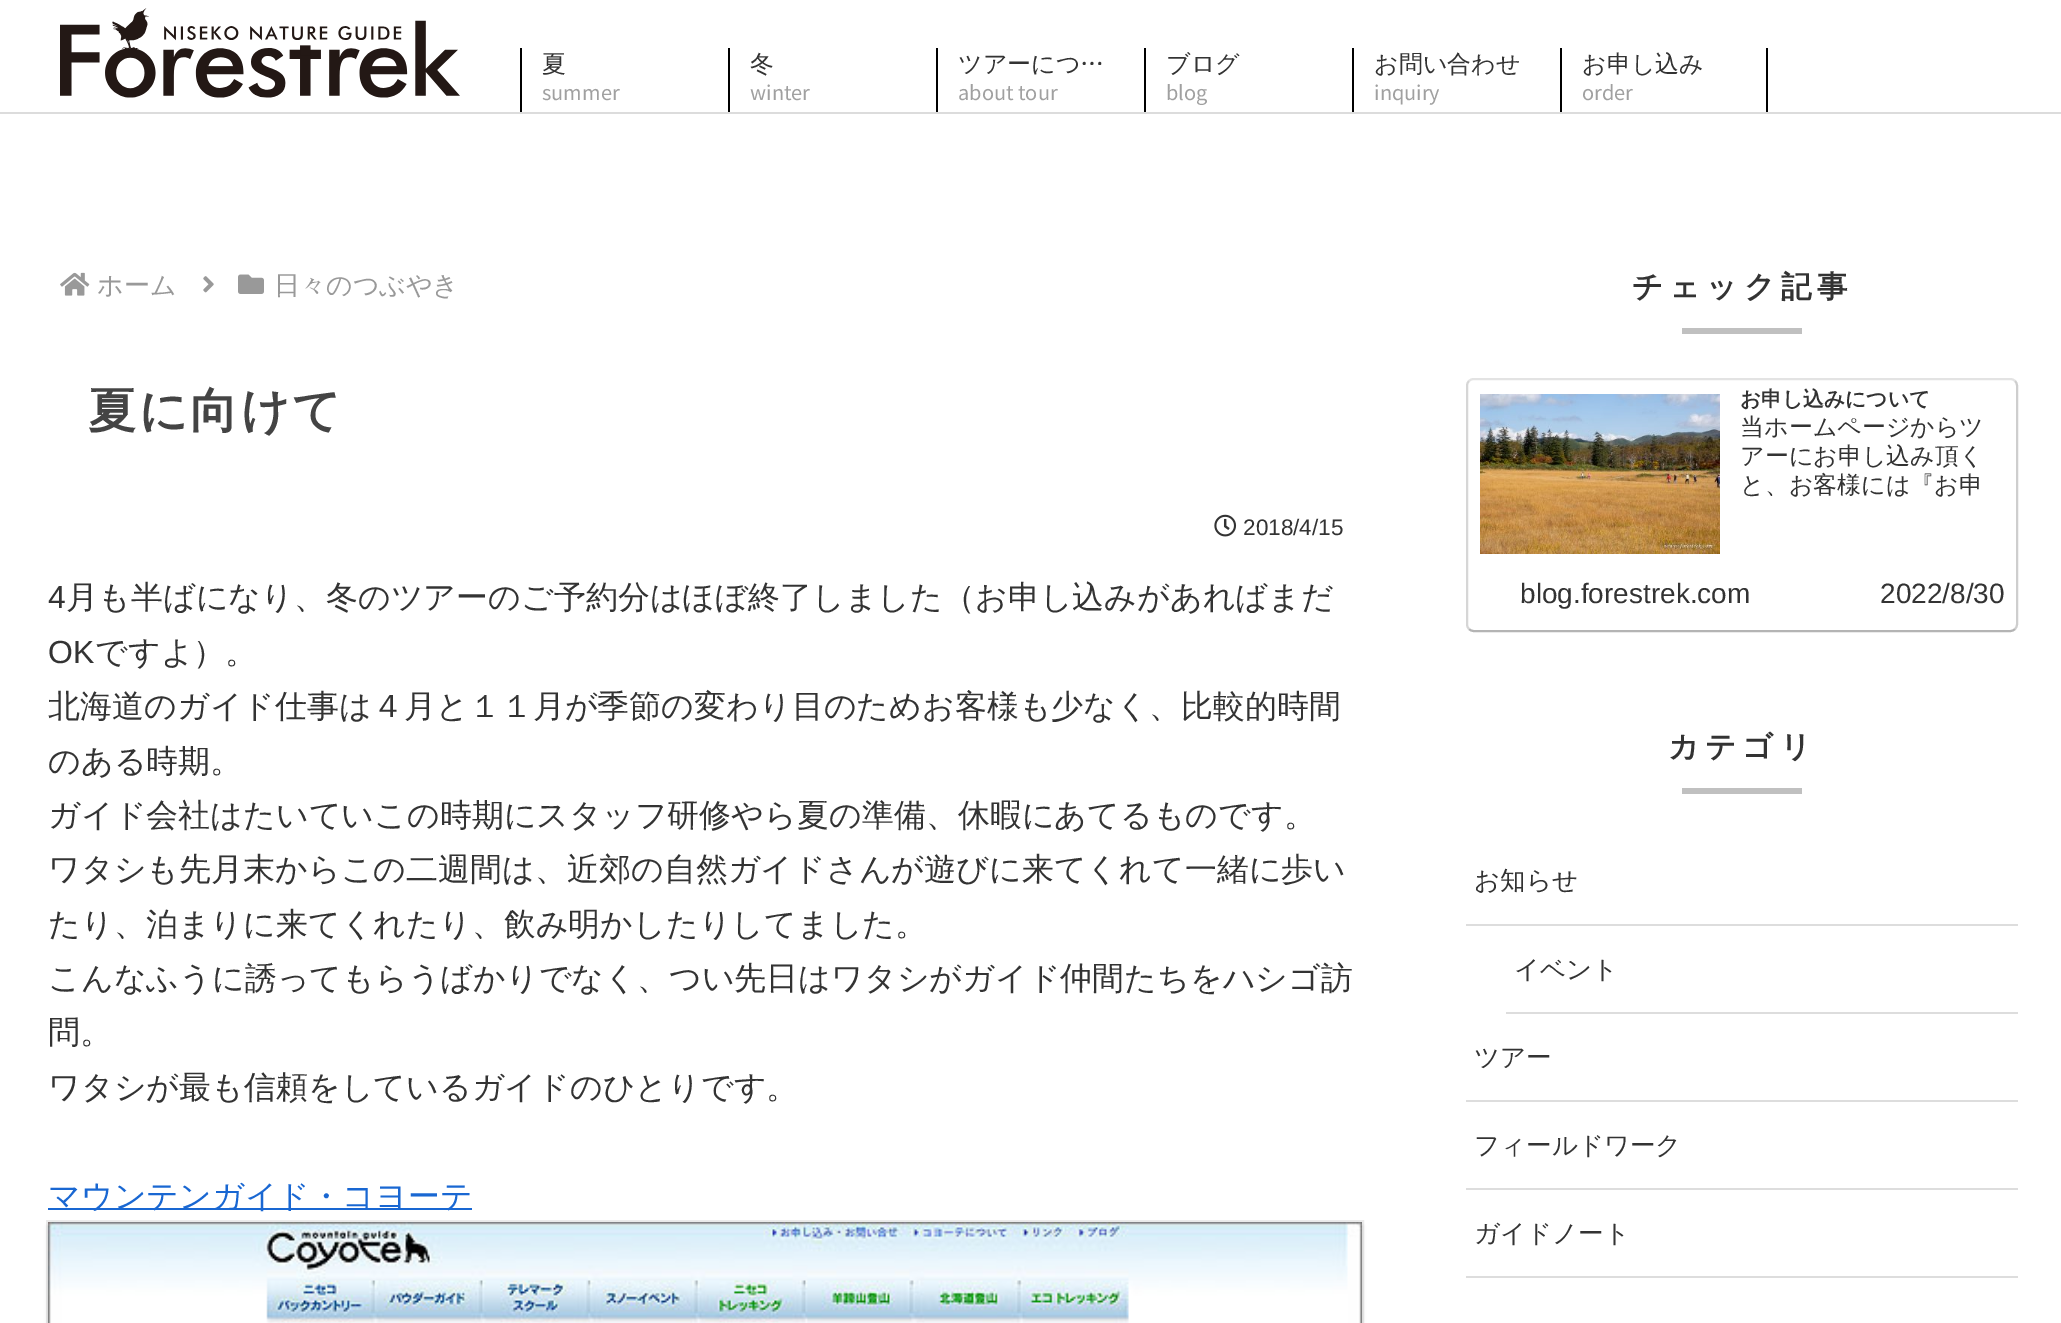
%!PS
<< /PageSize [2061 1323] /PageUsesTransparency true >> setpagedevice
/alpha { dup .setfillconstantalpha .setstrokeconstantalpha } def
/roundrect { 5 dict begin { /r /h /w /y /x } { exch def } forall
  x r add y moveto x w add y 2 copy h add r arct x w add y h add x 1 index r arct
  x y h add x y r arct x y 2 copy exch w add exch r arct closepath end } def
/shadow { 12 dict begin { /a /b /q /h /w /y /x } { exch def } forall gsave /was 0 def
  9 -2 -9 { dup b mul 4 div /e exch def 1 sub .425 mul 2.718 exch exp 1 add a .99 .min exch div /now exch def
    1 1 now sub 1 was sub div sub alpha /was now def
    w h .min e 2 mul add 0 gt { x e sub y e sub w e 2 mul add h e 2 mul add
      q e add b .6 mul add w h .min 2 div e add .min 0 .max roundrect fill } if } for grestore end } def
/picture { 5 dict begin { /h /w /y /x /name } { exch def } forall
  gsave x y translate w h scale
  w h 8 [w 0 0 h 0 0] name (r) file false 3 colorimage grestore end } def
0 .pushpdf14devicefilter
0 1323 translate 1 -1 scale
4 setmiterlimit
1 setgray
0 0 2061 1323 rectfill
0.863 setgray
0 112 2061 2 rectfill
(img1.rgb) 60 8 400 90 picture
0 setgray
520 48 2 64 rectfill
/WenQuanYiZenHei-Medium [24 0 0 -24 0 0] selectfont
0.2 setgray
542 72 moveto (夏) show
/NotoSansJP-Regular [20 0 0 -20 0 0] selectfont
0.627 setgray
542 100 moveto (summer) show
0 setgray
728 48 2 64 rectfill
/WenQuanYiZenHei-Medium [24 0 0 -24 0 0] selectfont
0.2 setgray
750 72 moveto (冬) show
/NotoSansJP-Regular [20 0 0 -20 0 0] selectfont
0.627 setgray
750 100 moveto (winter) show
0 setgray
936 48 2 64 rectfill
/WenQuanYiZenHei-Medium [24 0 0 -24 0 0] selectfont
0.2 setgray
958 72 moveto (ツアーにつ…) show
/NotoSansJP-Regular [20 0 0 -20 0 0] selectfont
0.627 setgray
958 100 moveto (about tour) show
0 setgray
1144 48 2 64 rectfill
/WenQuanYiZenHei-Medium [24 0 0 -24 0 0] selectfont
0.2 setgray
1166 72 moveto (ブログ) show
/NotoSansJP-Regular [20 0 0 -20 0 0] selectfont
0.627 setgray
1166 100 moveto (blog) show
0 setgray
1352 48 2 64 rectfill
/WenQuanYiZenHei-Medium [24 0 0 -24 0 0] selectfont
0.2 setgray
1374 72 moveto (お問い合わせ) show
/NotoSansJP-Regular [20 0 0 -20 0 0] selectfont
0.627 setgray
1374 100 moveto (inquiry) show
0 setgray
1766 48 2 64 rectfill
1560 48 2 64 rectfill
/WenQuanYiZenHei-Medium [24 0 0 -24 0 0] selectfont
0.2 setgray
1582 72 moveto (お申し込み) show
/NotoSansJP-Regular [20 0 0 -20 0 0] selectfont
0.627 setgray
1582 100 moveto (order) show
(img2.rgb) 60 272 30 24 picture
/WenQuanYiZenHei-Medium [26 0 0 -26 0 0] selectfont
0.6 setgray
97 294 moveto (ホーム) show
(img3.rgb) 203 276 11 17 picture
(img4.rgb) 238 274 26 20 picture
274 294 moveto (日々のつぶやき) show
/WenQuanYiZenHei-Bold [48 0 0 -48 0 0] selectfont
0.267 setgray
88 427 moveto 2.5 0 (夏に向けて) ashow
(img5.rgb) 1214 514 23 23 picture
/LiberationSans-Regular [22.5 0 0 -22.5 0 0] selectfont
0.2 setgray
1243 535 moveto (2018/4/15) show
/LiberationSans-Regular [32 0 0 -32 0 0] selectfont
48 608 moveto (4) show
/WenQuanYiZenHei-Medium [32 0 0 -32 0 0] selectfont
66 608 moveto (月も半ばになり、冬のツアーのご予約分はほぼ終了しました（お申し込みがあればまだ) show
/LiberationSans-Regular [32 0 0 -32 0 0] selectfont
48 663 moveto (OK) show
/WenQuanYiZenHei-Medium [32 0 0 -32 0 0] selectfont
95 663 moveto (ですよ）。) show
48 717 moveto (北海道のガイド仕事は４月と１１月が季節の変わり目のためお客様も少なく、比較的時間) show
48 772 moveto (のある時期。) show
48 826 moveto (ガイド会社はたいていこの時期にスタッフ研修やら夏の準備、休暇にあてるものです。) show
48 880 moveto (ワタシも先月末からこの二週間は、近郊の自然ガイドさんが遊びに来てくれて一緒に歩い) show
48 935 moveto (たり、泊まりに来てくれたり、飲み明かしたりしてました。) show
48 989 moveto (こんなふうに誘ってもらうばかりでなく、つい先日はワタシがガイド仲間たちをハシゴ訪) show
48 1043 moveto (問。) show
48 1098 moveto (ワタシが最も信頼をしているガイドのひとりです。) show
0.098 0.404 0.824 setrgbcolor
48 1208 424 2 rectfill
48 1207 moveto (マウンテンガイド・コヨーテ) show
0.922 setgray
2 setlinewidth
47 1221 1316 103 rectstroke
0 setgray
48 1226 1314 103 0 2 0.16 shadow
(img6.rgb) 48 1222 1314 101 picture
/WenQuanYiZenHei-Bold [30.5 0 0 -30.5 0 0] selectfont
0.2 setgray
1632 297 moveto 6 0 (チェック記事) ashow
0.753 setgray
1682 328 120 6 rectfill
0.89 setgray
newpath 1469 381 moveto 1470.5 379.5 1472 379 1474 379 curveto 2010 379 lineto 2012 379 2013.5 379.5 2015 381 curveto stroke
0.808 setgray
newpath 2015 381 moveto 2016.5 382.5 2017 384 2017 386 curveto 2017 624 lineto 2017 626 2016.5 627.5 2015 629 curveto stroke
0.706 setgray
newpath 2015 629 moveto 2013.5 630.5 2012 631 2010 631 curveto 1474 631 lineto 1472 631 1470.5 630.5 1469 629 curveto stroke
0.839 setgray
newpath 1469 629 moveto 1467.5 627.5 1467 626 1467 624 curveto 1467 386 lineto 1467 384 1467.5 382.5 1469 381 curveto stroke
(img7.rgb) 1480 394 240 160 picture
/WenQuanYiZenHei-Bold [20.75 0 0 -20.75 0 0] selectfont
0.2 setgray
1740 406 moveto (お申し込みについて) show
/WenQuanYiZenHei-Medium [24 0 0 -24 0 0] selectfont
1740 435 moveto (当ホームページからツ) show
1740 464 moveto (アーにお申し込み頂く) show
1740 493 moveto (と、お客様には『お申) show
/LiberationSans-Regular [28 0 0 -28 0 0] selectfont
1520 603 moveto (blog.forestrek.com) show
1880 603 moveto (2022/8/30) show
/WenQuanYiZenHei-Bold [30.5 0 0 -30.5 0 0] selectfont
1668 757 moveto 6 0 (カテゴリ) ashow
0.753 setgray
1682 788 120 6 rectfill
0.867 setgray
1466 924 552 2 rectfill
/WenQuanYiZenHei-Medium [25.5 0 0 -25.5 0 0] selectfont
0.2 setgray
1474 889 moveto (お知らせ) show
0.867 setgray
1506 1012 512 2 rectfill
0.2 setgray
1514 978 moveto (イベント) show
0.867 setgray
1466 1100 552 2 rectfill
0.2 setgray
1474 1066 moveto (ツアー) show
0.867 setgray
1466 1188 552 2 rectfill
0.2 setgray
1474 1154 moveto (フィールドワーク) show
0.867 setgray
1466 1276 552 2 rectfill
0.2 setgray
1474 1242 moveto (ガイドノート) show
.poppdf14devicefilter showpage
